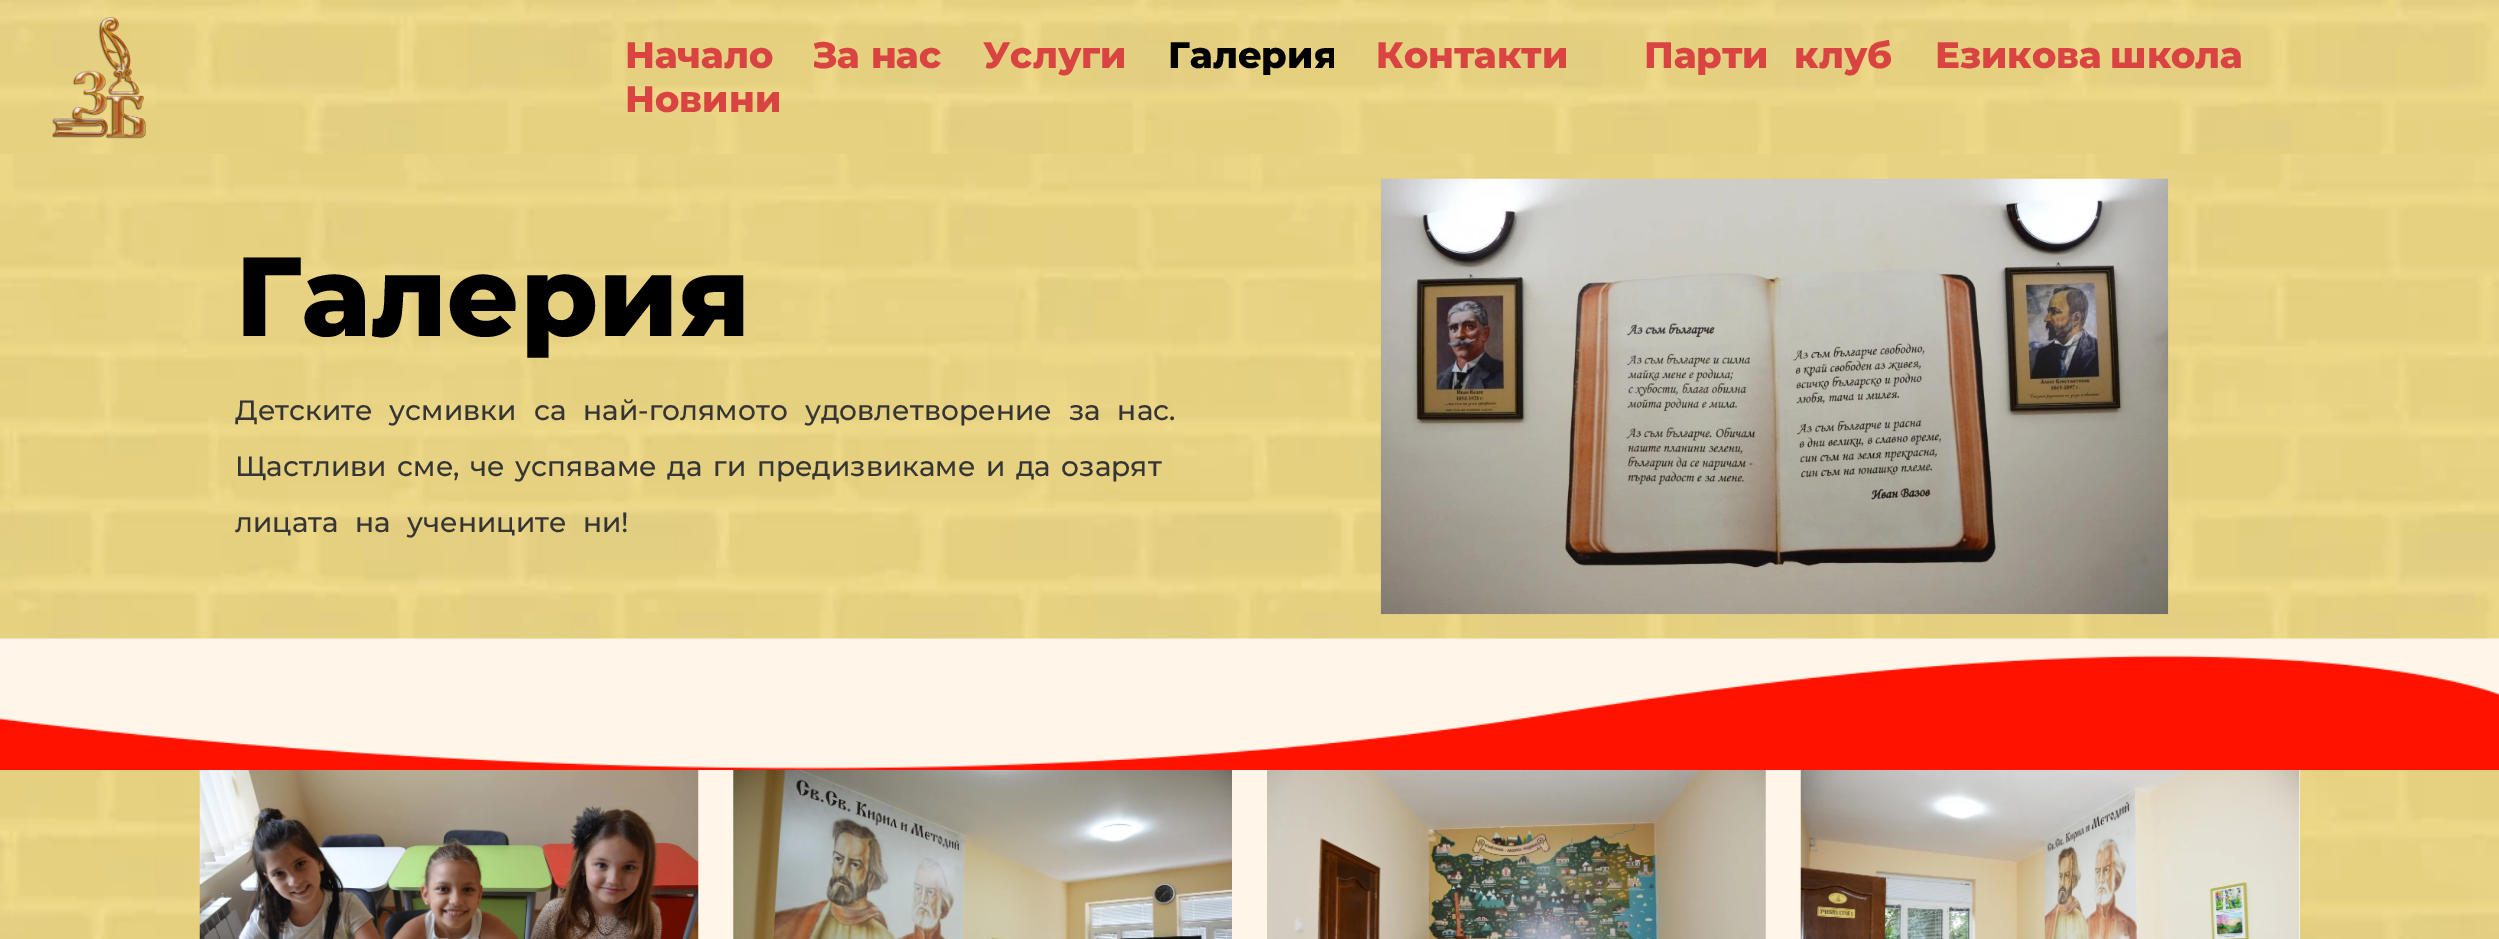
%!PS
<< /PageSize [2499 939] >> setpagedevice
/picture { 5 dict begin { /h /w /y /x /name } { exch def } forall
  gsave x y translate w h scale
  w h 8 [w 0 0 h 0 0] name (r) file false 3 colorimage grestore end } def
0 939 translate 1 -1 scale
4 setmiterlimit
1 setgray
0 0 2499 939 rectfill
(img1.rgb) 0 0 2499 154 picture
(img2.rgb) 52 17 94 122 picture
/Montserrat-ExtraBold [36.75 0 0 -36.75 0 0] selectfont
0.851 0.267 0.263 setrgbcolor
625 68 moveto (Начало) show
gsave
814 33 128 44 rectclip
813 68 moveto (За нас) show
grestore
983 68 moveto (Услуги) show
gsave
1167 33 167 44 rectclip
0 setgray
1168 68 moveto (Галерия) show
grestore
1376 68 moveto (Контакти) show
1644 68 moveto 15 0 32 (Парти клуб) widthshow
1935 68 moveto -2 0 32 (Езикова школа) widthshow
625 112 moveto (Новини) show
(img3.rgb) 0 154 2499 485 picture
/Montserrat-ExtraBold [112 0 0 -112 0 0] selectfont
0 setgray
235 336 moveto (Галерия) show
/Montserrat-Medium [28 0 0 -28 0 0] selectfont
0.208 setgray
235 420 moveto 9.5 0 32 (Детските усмивки са най-голямото удовлетворение за нас.) widthshow
235 476 moveto 3 0 32 (Щастливи сме, че успяваме да ги предизвикаме и да озарят) widthshow
235 532 moveto 9 0 32 (лицата на учениците ни!) widthshow
(img4.rgb) 1380 178 789 437 picture
1 0.071 0 setrgbcolor
0 655 2499 115 rectfill
(img5.rgb) 0 638 2499 132 picture
(img6.rgb) 0 770 2499 169 picture
1 0.965 0.914 setrgbcolor
698 770 1602 169 rectfill
(img7.rgb) 199 770 500 169 picture
(img8.rgb) 733 770 499 169 picture
(img9.rgb) 1267 770 499 169 picture
(img10.rgb) 1800 770 500 169 picture
showpage
